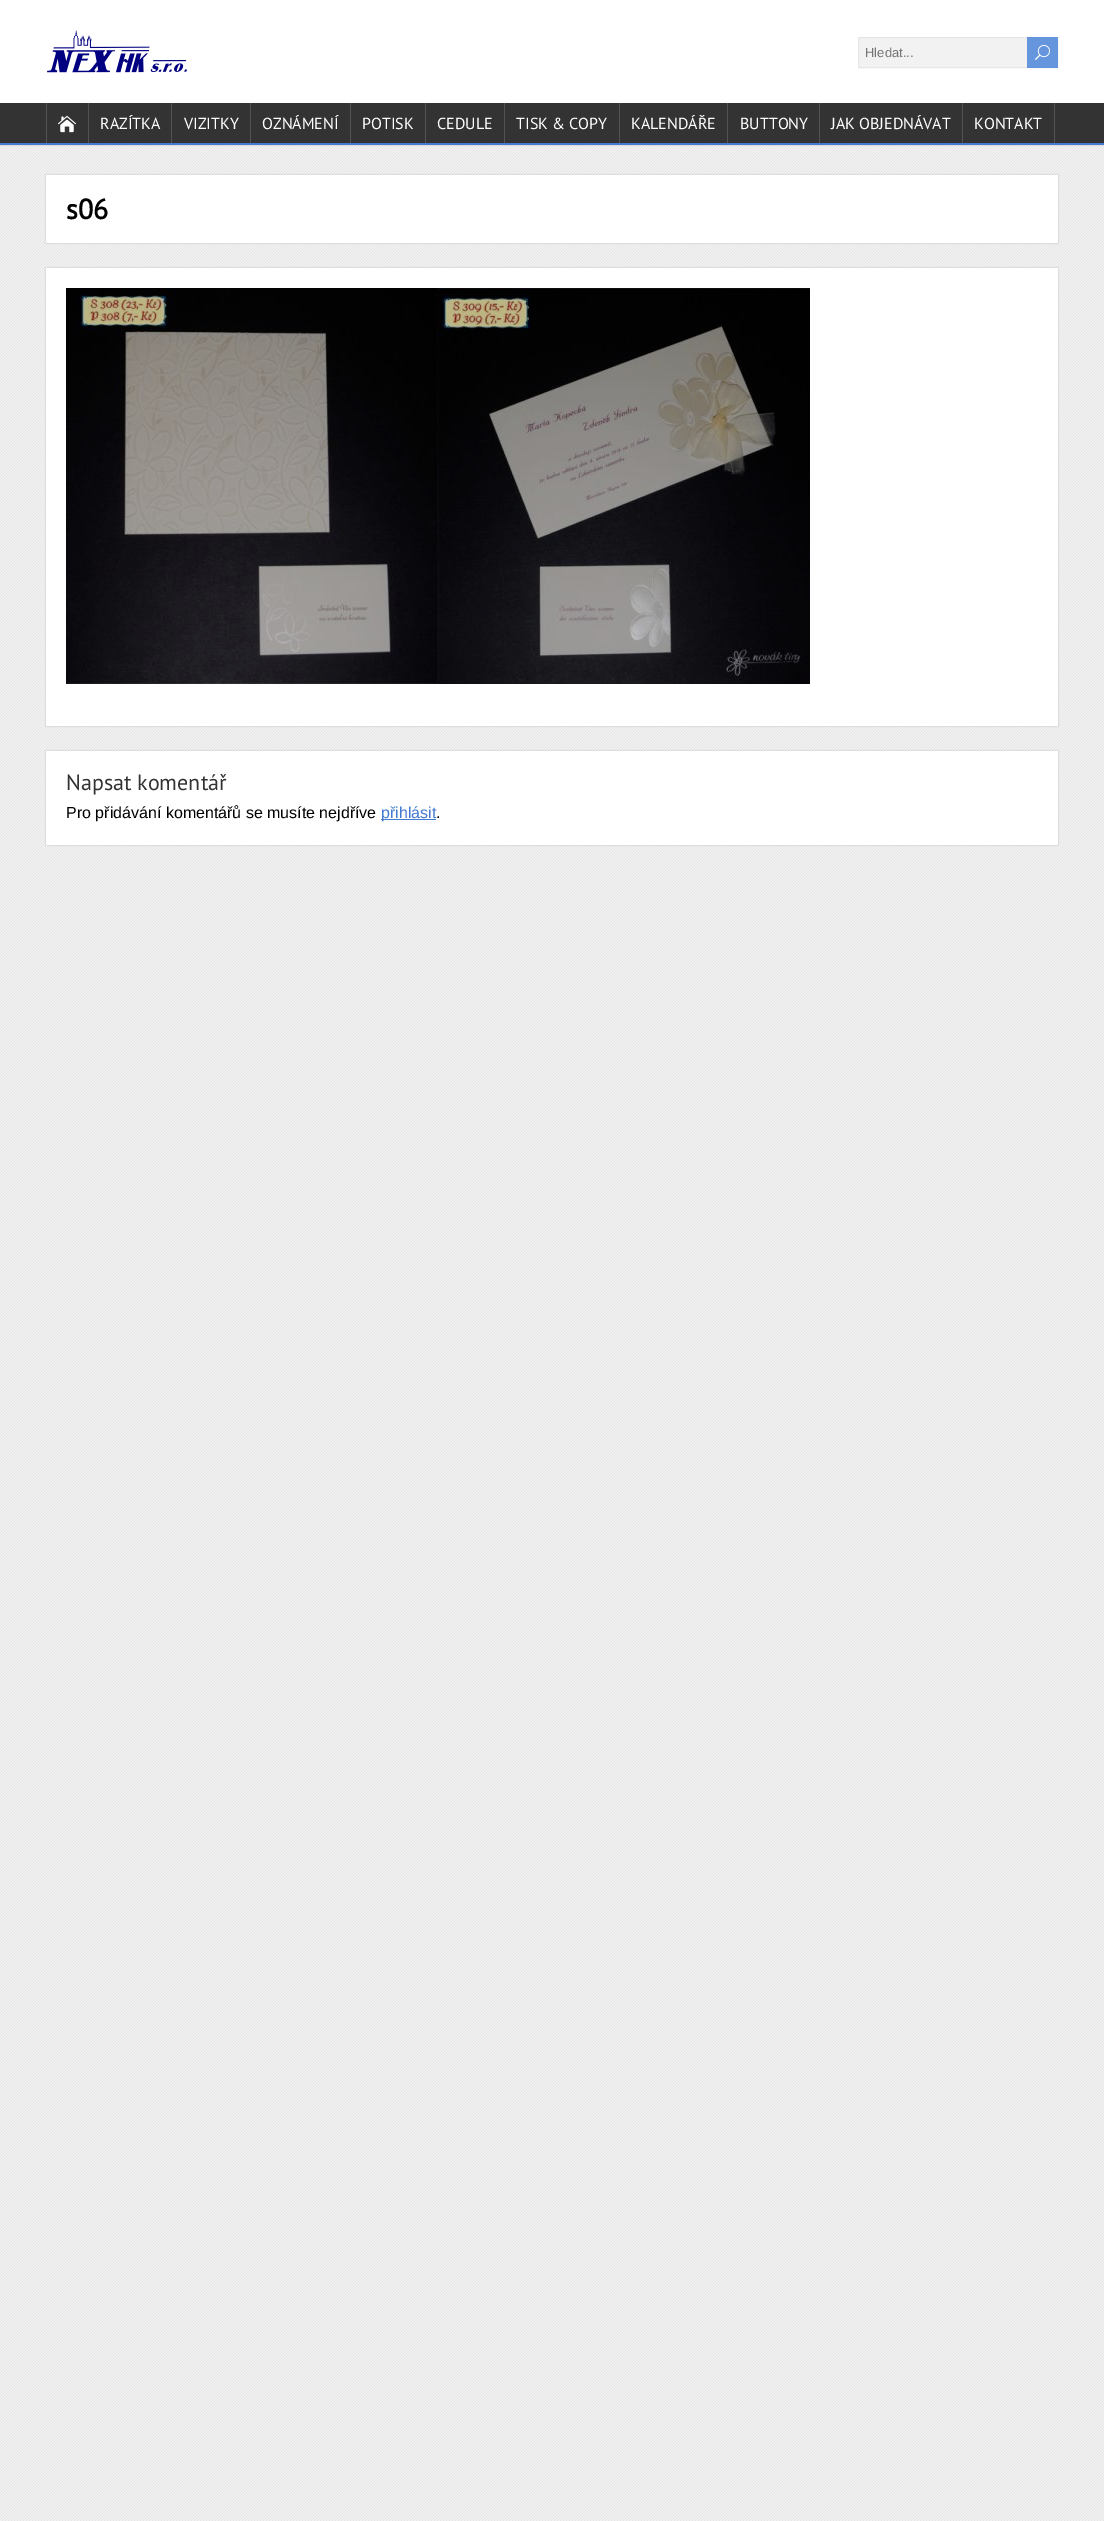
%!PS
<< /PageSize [1104 2521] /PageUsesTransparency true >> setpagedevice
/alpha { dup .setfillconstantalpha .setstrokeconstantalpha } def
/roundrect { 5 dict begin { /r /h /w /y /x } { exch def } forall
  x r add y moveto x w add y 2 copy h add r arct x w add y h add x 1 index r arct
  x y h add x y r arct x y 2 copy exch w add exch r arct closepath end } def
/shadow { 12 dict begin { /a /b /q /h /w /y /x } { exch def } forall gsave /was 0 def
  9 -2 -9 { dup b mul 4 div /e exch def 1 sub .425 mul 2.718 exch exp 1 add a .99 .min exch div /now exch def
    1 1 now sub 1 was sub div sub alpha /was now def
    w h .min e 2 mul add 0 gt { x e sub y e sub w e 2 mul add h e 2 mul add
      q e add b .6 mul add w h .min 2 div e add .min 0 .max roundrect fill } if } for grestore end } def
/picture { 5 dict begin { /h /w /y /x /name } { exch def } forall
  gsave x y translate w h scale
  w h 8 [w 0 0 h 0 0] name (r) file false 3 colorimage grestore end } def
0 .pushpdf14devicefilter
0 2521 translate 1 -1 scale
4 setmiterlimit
0.945 setgray
0 0 1104 2521 rectfill
(img5.rgb) 0 145 1104 2376 picture
0.733 setgray
0 0 1104 145 0 1 1 shadow
1 setgray
0 0 1104 103 rectfill
(img1.rgb) 47 30 140 43 picture
0.949 setgray
859 38 168 29 rectfill
0.902 setgray
858.5 37.5 199 30 rectstroke
/LiberationSans-Regular [13 0 0 -13 0 0] selectfont
0.459 setgray
865 57 moveto (Hledat...) show
0.396 0.588 0.867 setrgbcolor
1027 37 31 31 rectfill
(img2.rgb) 1035 44 15 16 picture
0.2 setgray
0 103 1104 40 rectfill
0.263 0.482 0.816 setrgbcolor
0 143 1104 2 rectfill
0.325 setgray
88 103 1 40 rectfill
46 103 1 40 rectfill
(img3.rgb) 58 115 18 18 picture
171 103 1 40 rectfill
/PTSans-Regular [16 0 0 -16 0 0] selectfont
1 setgray
100 129 moveto (RAZÍTKA) show
0.325 setgray
250 103 1 40 rectfill
1 setgray
184 129 moveto (VIZITKY) show
0.325 setgray
350 103 1 40 rectfill
1 setgray
262 129 moveto (OZNÁMENÍ) show
0.325 setgray
425 103 1 40 rectfill
1 setgray
362 129 moveto (POTISK) show
0.325 setgray
504 103 1 40 rectfill
1 setgray
437 129 moveto (CEDULE) show
0.325 setgray
619 103 1 40 rectfill
1 setgray
516 129 moveto (TISK & COPY) show
0.325 setgray
727 103 1 40 rectfill
1 setgray
631 129 moveto (KALENDÁŘE) show
0.325 setgray
819 103 1 40 rectfill
1 setgray
740 129 moveto (BUTTONY) show
0.325 setgray
962 103 1 40 rectfill
1 setgray
831 129 moveto (JAK OBJEDNÁVAT) show
0.325 setgray
1054 103 1 40 rectfill
1 setgray
974 129 moveto (KONTAKT) show
0.733 setgray
46 175 1012 68 0 1 1 shadow
1 setgray
46 175 1012 68 rectfill
/PTSans-Bold [28 0 0 -28 0 0] selectfont
0 setgray
66 219 moveto (s06) show
0.733 setgray
46 268 1012 458 0 1 1 shadow
1 setgray
46 268 1012 458 rectfill
(img4.rgb) 66 288 744 396 picture
0.733 setgray
46 751 1012 94 0 1 1 shadow
1 setgray
46 751 1012 94 rectfill
/PTSans-Regular [22 0 0 -22 0 0] selectfont
0.2 setgray
66 790 moveto (Napsat komentář) show
/LiberationSans-Regular [16 0 0 -16 0 0] selectfont
0 setgray
66 818 moveto (Pro přidávání komentářů se musíte nejdříve) show
0.263 0.482 0.816 setrgbcolor
381 819 55 1 rectfill
381 818 moveto (přihlásit) show
0 setgray
436 818 moveto (.) show
.poppdf14devicefilter showpage
